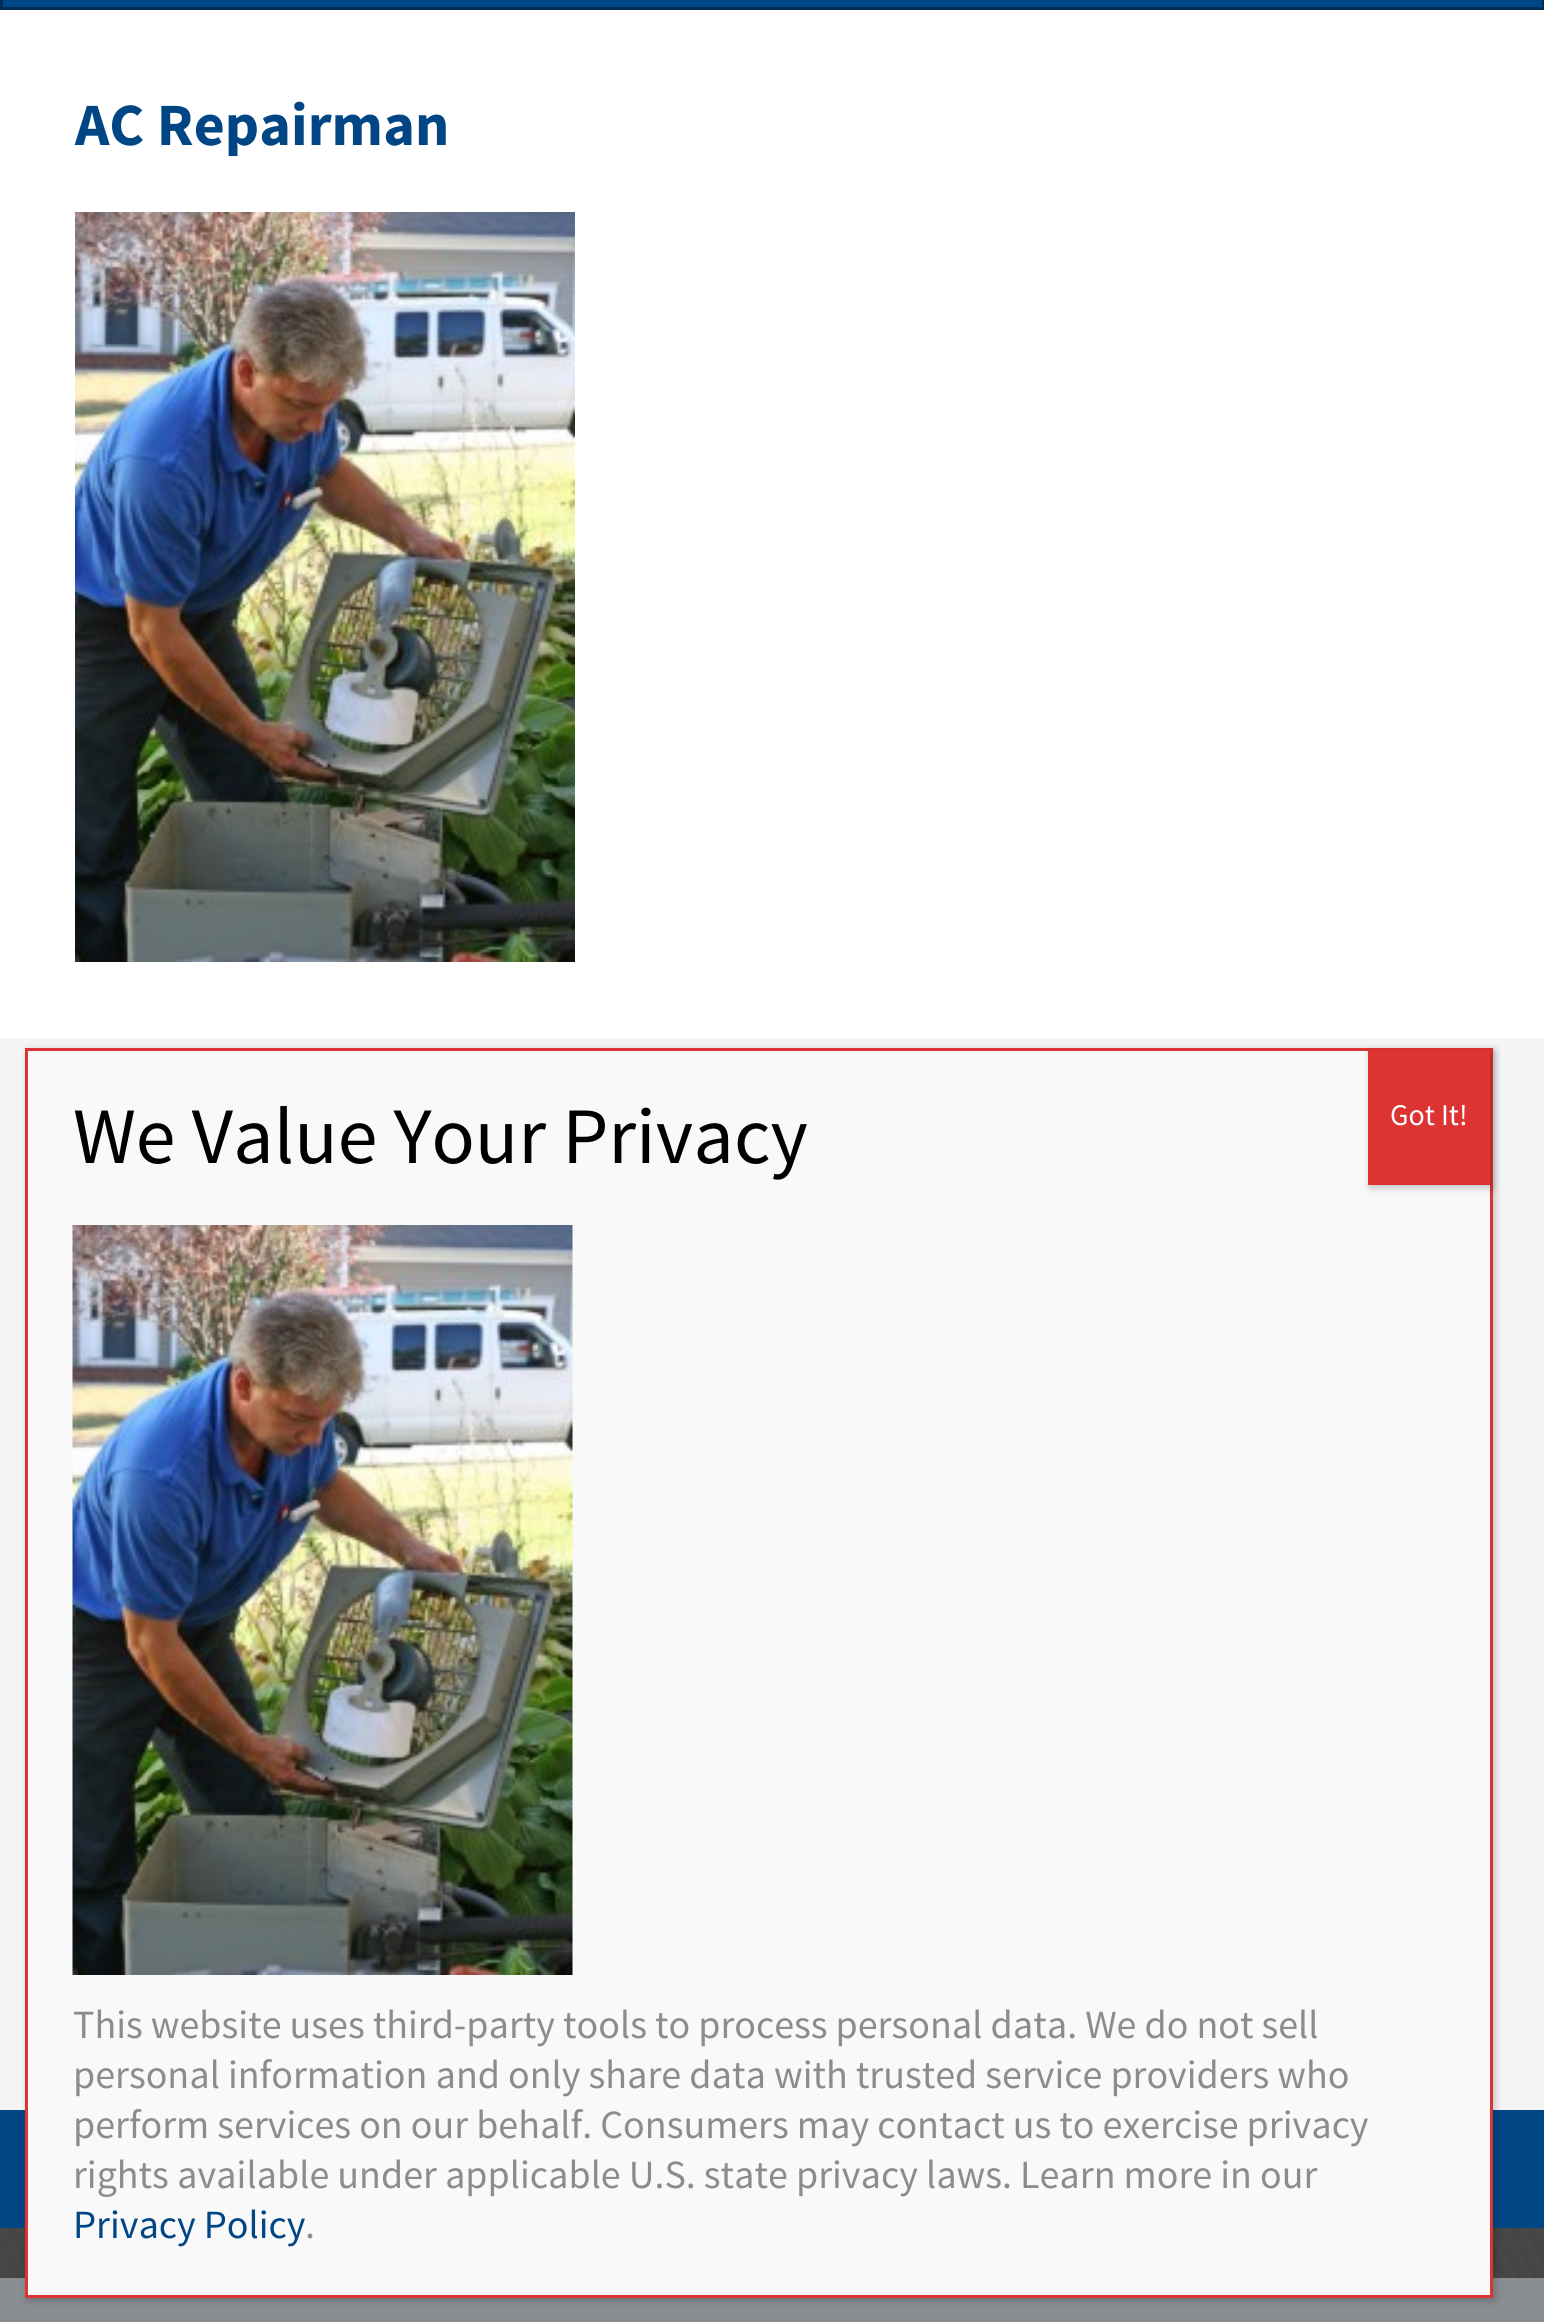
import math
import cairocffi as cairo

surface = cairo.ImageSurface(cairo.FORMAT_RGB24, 1544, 2322)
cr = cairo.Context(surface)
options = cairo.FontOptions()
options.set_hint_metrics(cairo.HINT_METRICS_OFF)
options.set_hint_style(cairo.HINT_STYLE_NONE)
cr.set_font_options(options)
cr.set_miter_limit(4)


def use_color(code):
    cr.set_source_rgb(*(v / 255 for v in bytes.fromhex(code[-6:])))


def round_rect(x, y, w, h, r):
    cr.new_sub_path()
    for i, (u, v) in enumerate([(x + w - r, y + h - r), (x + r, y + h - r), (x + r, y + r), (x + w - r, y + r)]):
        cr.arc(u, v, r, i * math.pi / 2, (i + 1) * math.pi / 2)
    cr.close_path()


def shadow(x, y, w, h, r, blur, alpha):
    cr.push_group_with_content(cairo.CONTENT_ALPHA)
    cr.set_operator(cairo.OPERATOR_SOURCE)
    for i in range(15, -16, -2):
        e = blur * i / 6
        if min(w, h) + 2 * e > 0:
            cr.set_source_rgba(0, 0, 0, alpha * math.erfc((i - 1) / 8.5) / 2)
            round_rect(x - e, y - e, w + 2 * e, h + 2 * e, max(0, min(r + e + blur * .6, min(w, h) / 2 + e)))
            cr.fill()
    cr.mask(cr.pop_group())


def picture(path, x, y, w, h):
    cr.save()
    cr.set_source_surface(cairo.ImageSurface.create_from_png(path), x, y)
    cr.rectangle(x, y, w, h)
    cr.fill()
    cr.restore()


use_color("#ffffff")
cr.paint()
picture("img1.png", 0, 2228, 1544, 50)
use_color("#004684")
cr.rectangle(1.5, -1.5, 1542, 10)
cr.fill_preserve()
use_color("#002d55")
cr.set_line_width(3)
cr.stroke()
cr.select_font_face("Source Sans Pro", cairo.FONT_SLANT_NORMAL, cairo.FONT_WEIGHT_BOLD)
cr.set_font_size(60)
use_color("#004684")
cr.move_to(75, 145)
cr.show_text("AC Repairman")
picture("img2.png", 75, 212, 500, 750)
use_color("#f5f5f5")
cr.rectangle(0, 1038, 1544, 1072)
cr.fill()
use_color("#004684")
cr.rectangle(0, 2110, 1544, 118)
cr.fill()
use_color("#888d91")
cr.rectangle(0, 2278, 1544, 44)
cr.fill()
use_color("#020202")
shadow(28, 1050, 1467, 1250, 0, 4, 0.23)
use_color("#f9f9f9")
cr.rectangle(26.5, 1049.5, 1465, 1247)
cr.fill_preserve()
use_color("#dd3333")
cr.stroke()
cr.select_font_face("Source Sans Pro")
cr.set_font_size(80)
use_color("#000000")
cr.move_to(73, 1163)
cr.show_text("We Value Your Privacy")
use_color("#020202")
shadow(1370, 1053, 123, 135, 0, 4, 0.23)
use_color("#dd3333")
cr.rectangle(1368, 1050, 122, 135)
cr.fill()
cr.set_font_size(30)
use_color("#ffffff")
cr.move_to(1390, 1125)
cr.show_text("Got It!")
picture("img3.png", 72, 1225, 501, 750)
cr.set_font_size(40)
use_color("#8c8c8c")
cr.move_to(73, 2038)
cr.show_text("This website uses third-party tools to process personal data. We do not sell")
cr.move_to(73, 2088)
cr.show_text("personal information and only share data with trusted service providers who")
cr.move_to(73, 2138)
cr.show_text("perform services on our behalf. Consumers may contact us to exercise privacy")
cr.move_to(73, 2188)
cr.show_text("rights available under applicable U.S. state privacy laws. Learn more in our")
use_color("#004684")
cr.move_to(73, 2238)
cr.show_text("Privacy Policy")
use_color("#8c8c8c")
cr.move_to(305, 2238)
cr.show_text(".")
surface.write_to_png("result.png")
